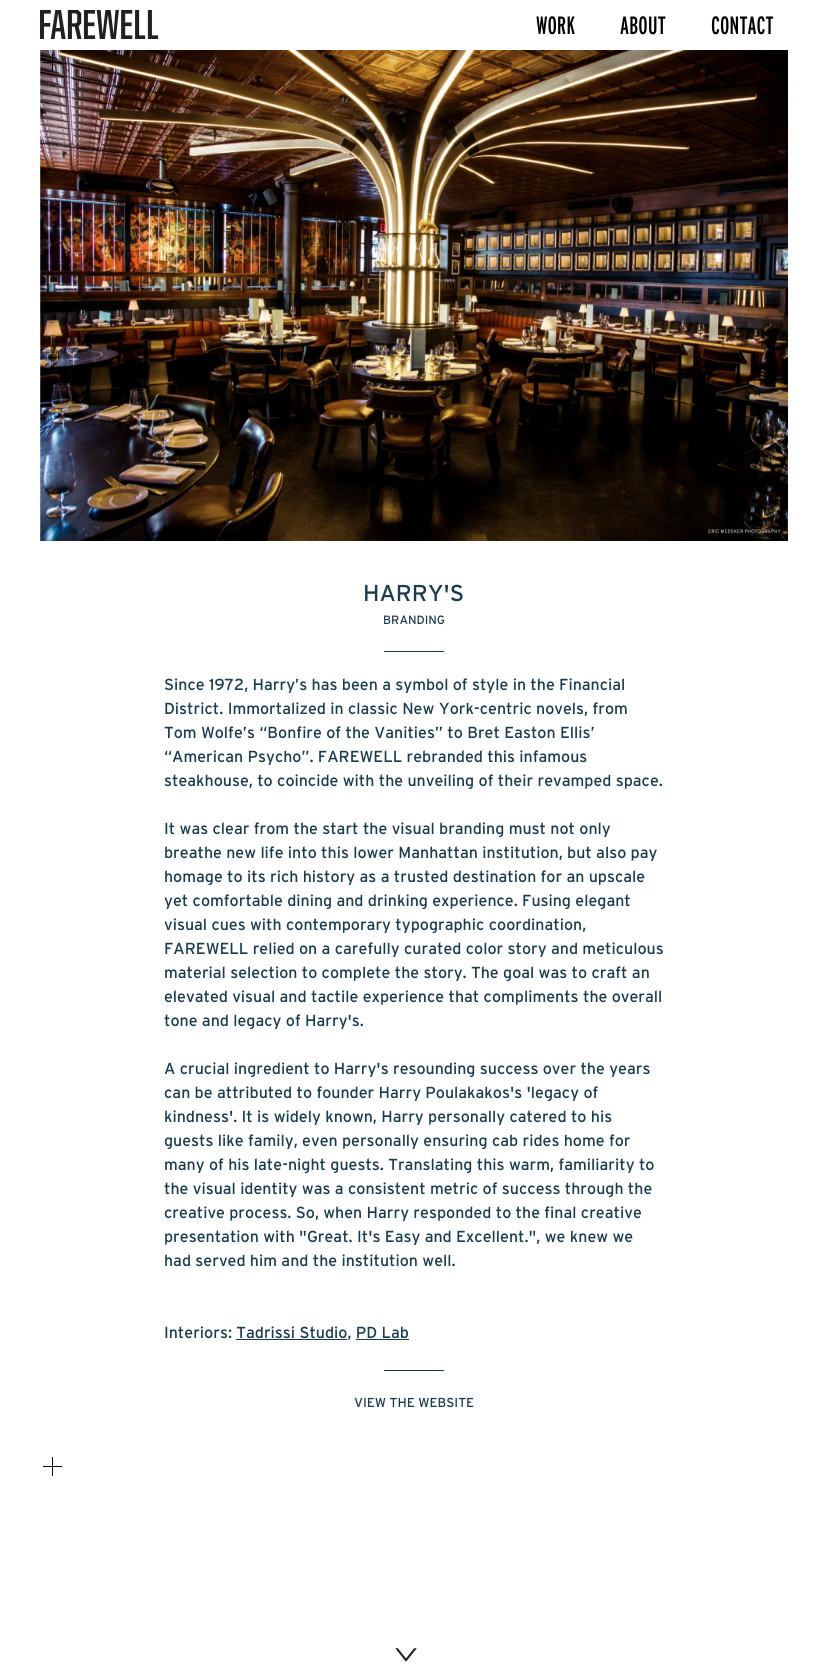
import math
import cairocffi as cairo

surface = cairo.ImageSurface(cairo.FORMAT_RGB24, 813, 1680)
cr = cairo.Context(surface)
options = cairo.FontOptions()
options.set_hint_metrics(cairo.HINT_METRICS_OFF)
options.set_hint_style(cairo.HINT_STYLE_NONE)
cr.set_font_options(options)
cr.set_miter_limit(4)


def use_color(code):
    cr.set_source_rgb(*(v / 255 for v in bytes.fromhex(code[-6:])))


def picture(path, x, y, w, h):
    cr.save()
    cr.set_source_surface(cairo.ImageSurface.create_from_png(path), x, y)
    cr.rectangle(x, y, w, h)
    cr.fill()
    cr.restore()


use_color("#ffffff")
cr.paint()
picture("img1.png", 40, 10, 118, 29)
cr.select_font_face("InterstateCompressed")
cr.set_font_size(25)
use_color("#000000")
cr.move_to(536, 34)
cr.show_text("WORK")
cr.move_to(620, 34)
cr.show_text("ABOUT")
cr.move_to(711, 34)
cr.show_text("CONTACT")
picture("img2.png", 40, 50, 748, 489)
picture("img3.png", 43, 53, 19, 19)
picture("img4.png", 40, 539, 748, 2)
cr.select_font_face("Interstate")
cr.set_font_size(23)
use_color("#193d50")
cr.move_to(363, 601)
cr.show_text("HARRY'S")
cr.set_font_size(12)
cr.move_to(383, 624)
cr.show_text("BRANDING")
cr.rectangle(384, 651, 60, 1)
cr.fill()
cr.set_font_size(16)
cr.move_to(164, 690)
cr.show_text("Since 1972, Harry’s has been a symbol of style in the Financial")
cr.move_to(164, 714)
cr.show_text("District. Immortalized in classic New York-centric novels, from")
cr.move_to(164, 738)
cr.show_text("Tom Wolfe’s “Bonfire of the Vanities” to Bret Easton Ellis’")
cr.move_to(164, 762)
cr.show_text("“American Psycho”. FAREWELL rebranded this infamous")
cr.move_to(164, 786)
cr.show_text("steakhouse, to coincide with the unveiling of their revamped space.")
cr.move_to(164, 834)
cr.show_text("It was clear from the start the visual branding must not only")
cr.move_to(164, 858)
cr.show_text("breathe new life into this lower Manhattan institution, but also pay")
cr.move_to(164, 882)
cr.show_text("homage to its rich history as a trusted destination for an upscale")
cr.move_to(164, 906)
cr.show_text("yet comfortable dining and drinking experience. Fusing elegant")
cr.move_to(164, 930)
cr.show_text("visual cues with contemporary typographic coordination,")
cr.move_to(164, 954)
cr.show_text("FAREWELL relied on a carefully curated color story and meticulous")
cr.move_to(164, 978)
cr.show_text("material selection to complete the story. The goal was to craft an")
cr.move_to(164, 1002)
cr.show_text("elevated visual and tactile experience that compliments the overall")
cr.move_to(164, 1026)
cr.show_text("tone and legacy of Harry's.")
cr.move_to(164, 1074)
cr.show_text("A crucial ingredient to Harry's resounding success over the years")
cr.move_to(164, 1098)
cr.show_text("can be attributed to founder Harry Poulakakos's 'legacy of")
cr.move_to(164, 1122)
cr.show_text("kindness'. It is widely known, Harry personally catered to his")
cr.move_to(164, 1146)
cr.show_text("guests like family, even personally ensuring cab rides home for")
cr.move_to(164, 1170)
cr.show_text("many of his late-night guests. Translating this warm, familiarity to")
cr.move_to(164, 1194)
cr.show_text("the visual identity was a consistent metric of success through the")
cr.move_to(164, 1218)
cr.show_text("creative process. So, when Harry responded to the final creative")
cr.move_to(164, 1242)
cr.show_text("presentation with \"Great. It's Easy and Excellent.\", we knew we")
cr.move_to(164, 1266)
cr.show_text("had served him and the institution well.")
cr.move_to(164, 1338)
cr.show_text("Interiors: Tadrissi Studio, PD Lab")
cr.rectangle(236, 1339, 111, 1)
cr.fill()
cr.rectangle(356, 1339, 53, 1)
cr.fill()
cr.rectangle(384, 1370, 60, 1)
cr.fill()
cr.set_font_size(13)
cr.move_to(354, 1407)
cr.show_text("VIEW THE WEBSITE")
picture("img5.png", 43, 1457, 19, 19)
picture("img6.png", 395, 1648, 22, 14)
surface.write_to_png("result.png")
